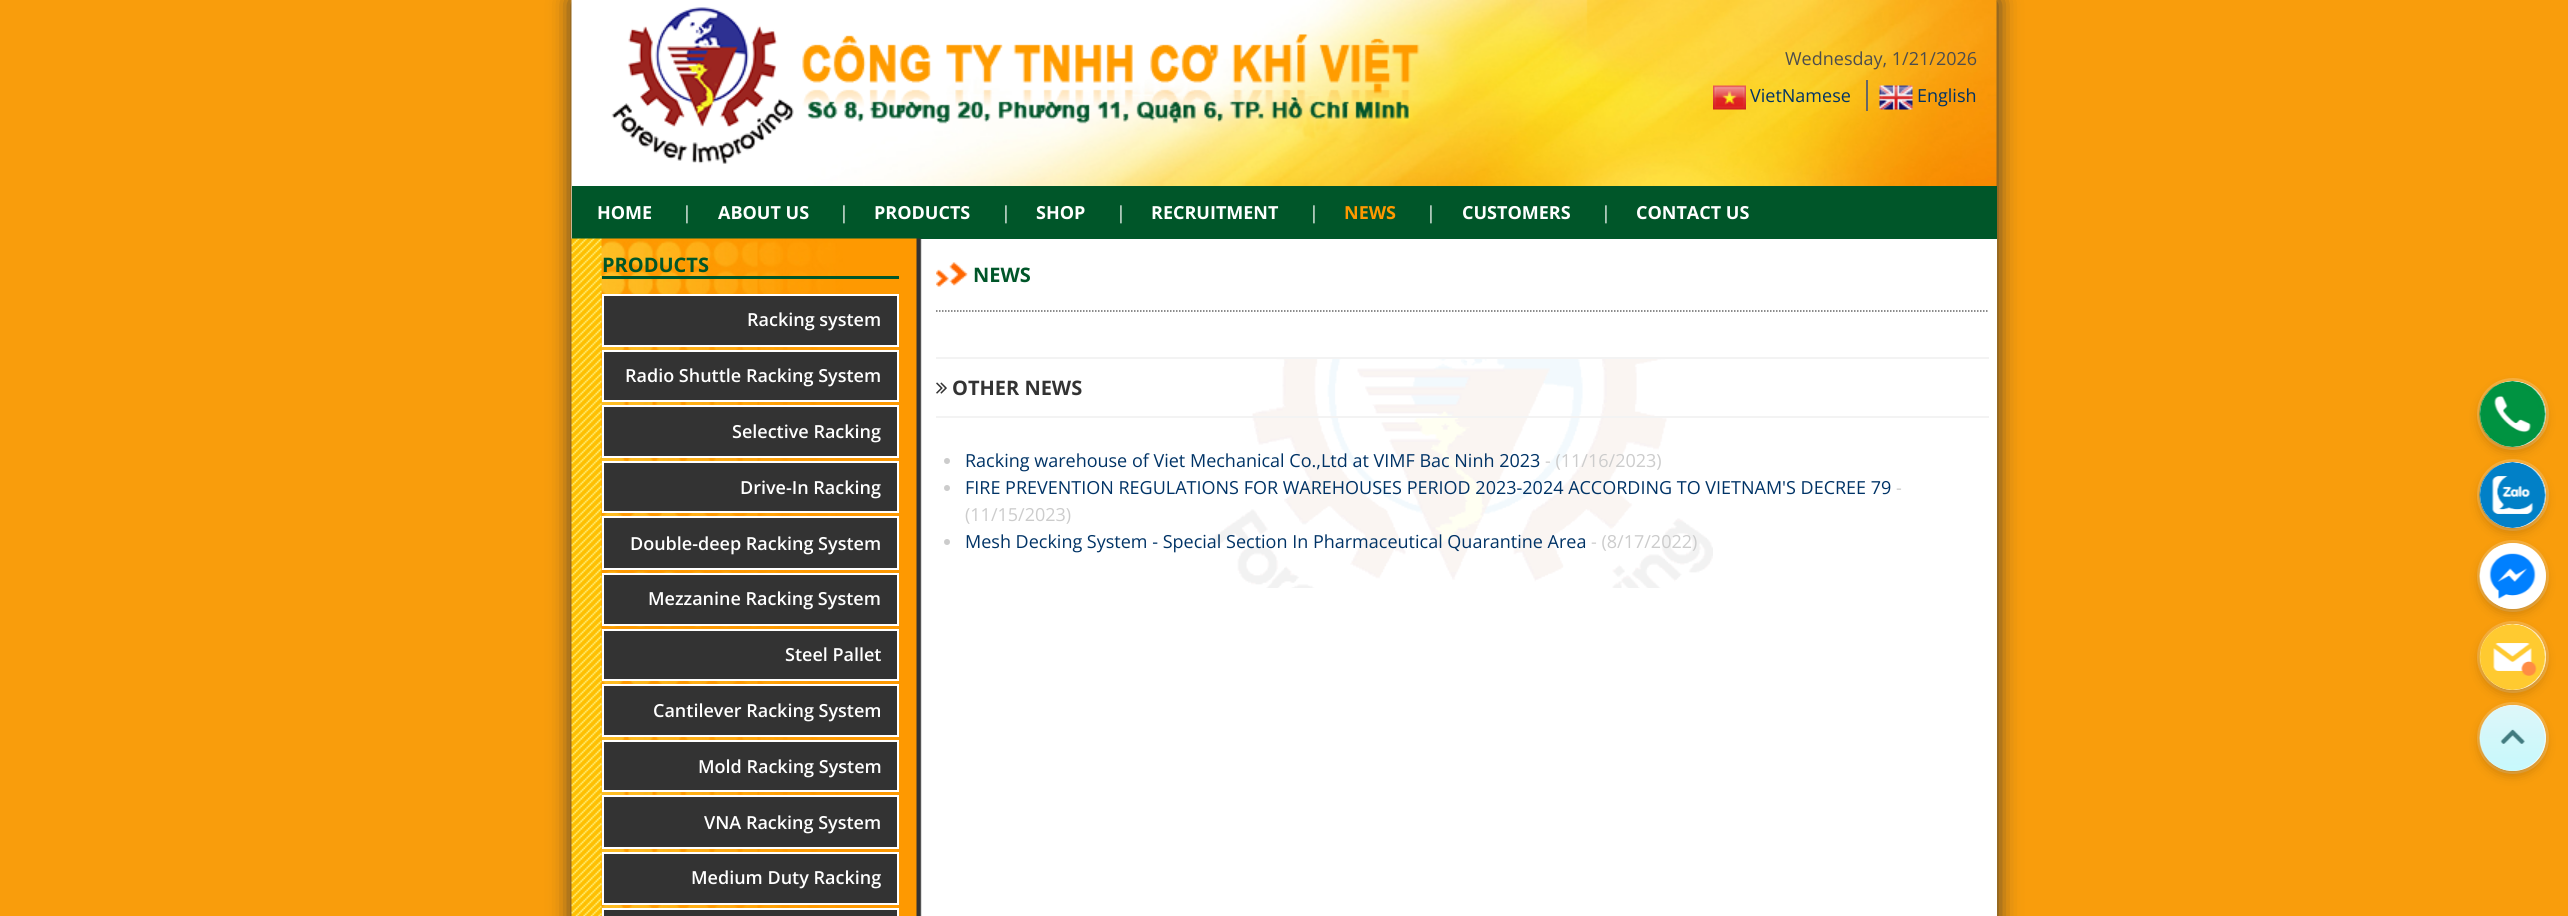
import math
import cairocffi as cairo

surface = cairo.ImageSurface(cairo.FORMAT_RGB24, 2568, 916)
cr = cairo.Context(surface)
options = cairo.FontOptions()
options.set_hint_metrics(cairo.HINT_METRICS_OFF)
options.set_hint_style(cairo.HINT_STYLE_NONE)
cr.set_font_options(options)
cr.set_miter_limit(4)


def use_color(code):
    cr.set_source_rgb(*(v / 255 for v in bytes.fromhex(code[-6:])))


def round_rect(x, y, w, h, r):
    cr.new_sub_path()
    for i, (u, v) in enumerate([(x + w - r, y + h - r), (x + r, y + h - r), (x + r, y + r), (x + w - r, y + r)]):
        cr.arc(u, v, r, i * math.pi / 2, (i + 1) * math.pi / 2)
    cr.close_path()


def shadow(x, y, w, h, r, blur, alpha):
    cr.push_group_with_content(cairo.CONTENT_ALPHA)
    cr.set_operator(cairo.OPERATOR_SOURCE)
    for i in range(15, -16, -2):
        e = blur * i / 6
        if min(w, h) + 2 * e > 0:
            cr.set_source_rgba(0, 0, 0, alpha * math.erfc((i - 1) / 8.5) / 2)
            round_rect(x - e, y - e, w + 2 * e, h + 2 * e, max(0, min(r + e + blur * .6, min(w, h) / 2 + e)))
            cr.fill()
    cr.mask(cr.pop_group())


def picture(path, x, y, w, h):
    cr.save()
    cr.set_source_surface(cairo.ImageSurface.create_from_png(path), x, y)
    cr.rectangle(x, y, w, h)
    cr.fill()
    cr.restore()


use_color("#f99d0c")
cr.paint()
use_color("#333333")
shadow(572, 0, 1425, 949, 0, 11, 1)
picture("img1.png", 571, 0, 1426, 239)
picture("img2.png", 611, 7, 809, 157)
cr.select_font_face("Open Sans")
cr.set_font_size(18)
use_color("#4d4d4d")
cr.move_to(1785, 65)
cr.show_text("Wednesday, 1/21/2026")
use_color("#666666")
cr.rectangle(1866, 80, 2, 31)
cr.fill()
picture("img3.png", 1713, 85, 33, 25)
use_color("#003366")
cr.move_to(1750, 102)
cr.show_text("VietNamese")
picture("img4.png", 1879, 85, 34, 25)
cr.move_to(1917, 102)
cr.show_text("English")
use_color("#005629")
cr.rectangle(572, 186, 1425, 53)
cr.fill()
cr.select_font_face("Open Sans", cairo.FONT_SLANT_NORMAL, cairo.FONT_WEIGHT_BOLD)
use_color("#ffffff")
cr.move_to(597, 219)
cr.show_text("HOME")
cr.select_font_face("Open Sans")
cr.move_to(682, 219)
cr.show_text("|")
cr.select_font_face("Open Sans", cairo.FONT_SLANT_NORMAL, cairo.FONT_WEIGHT_BOLD)
cr.move_to(718, 219)
cr.show_text("ABOUT US")
cr.select_font_face("Open Sans")
cr.move_to(839, 219)
cr.show_text("|")
cr.select_font_face("Open Sans", cairo.FONT_SLANT_NORMAL, cairo.FONT_WEIGHT_BOLD)
cr.move_to(874, 219)
cr.show_text("PRODUCTS")
cr.select_font_face("Open Sans")
cr.move_to(1001, 219)
cr.show_text("|")
cr.select_font_face("Open Sans", cairo.FONT_SLANT_NORMAL, cairo.FONT_WEIGHT_BOLD)
cr.move_to(1036, 219)
cr.show_text("SHOP")
cr.select_font_face("Open Sans")
cr.move_to(1116, 219)
cr.show_text("|")
cr.select_font_face("Open Sans", cairo.FONT_SLANT_NORMAL, cairo.FONT_WEIGHT_BOLD)
cr.move_to(1151, 219)
cr.show_text("RECRUITMENT")
cr.select_font_face("Open Sans")
cr.move_to(1309, 219)
cr.show_text("|")
cr.select_font_face("Open Sans", cairo.FONT_SLANT_NORMAL, cairo.FONT_WEIGHT_BOLD)
use_color("#ff9900")
cr.move_to(1344, 219)
cr.show_text("NEWS")
cr.select_font_face("Open Sans")
use_color("#ffffff")
cr.move_to(1426, 219)
cr.show_text("|")
cr.select_font_face("Open Sans", cairo.FONT_SLANT_NORMAL, cairo.FONT_WEIGHT_BOLD)
cr.move_to(1462, 219)
cr.show_text("CUSTOMERS")
cr.select_font_face("Open Sans")
cr.move_to(1601, 219)
cr.show_text("|")
cr.select_font_face("Open Sans", cairo.FONT_SLANT_NORMAL, cairo.FONT_WEIGHT_BOLD)
cr.move_to(1636, 219)
cr.show_text("CONTACT US")
cr.rectangle(920, 239, 1077, 677)
cr.fill()
picture("img5.png", 571, 238, 351, 678)
use_color("#005629")
cr.rectangle(602, 276, 297, 3)
cr.fill()
cr.set_font_size(20)
cr.move_to(602, 272)
cr.show_text("PRODUCTS")
use_color("#333333")
cr.rectangle(603, 295, 295, 51)
cr.fill_preserve()
use_color("#ffffff")
cr.stroke()
cr.select_font_face("Open Sans SemiBold")
cr.set_font_size(18)
cr.move_to(747, 326)
cr.show_text("Racking system")
use_color("#333333")
cr.rectangle(603, 351, 295, 50)
cr.fill_preserve()
use_color("#ffffff")
cr.stroke()
cr.move_to(625, 382)
cr.show_text("Radio Shuttle Racking System")
use_color("#333333")
cr.rectangle(603, 406, 295, 51)
cr.fill_preserve()
use_color("#ffffff")
cr.stroke()
cr.move_to(732, 438)
cr.show_text("Selective Racking")
use_color("#333333")
cr.rectangle(603, 462, 295, 50)
cr.fill_preserve()
use_color("#ffffff")
cr.stroke()
cr.move_to(740, 494)
cr.show_text("Drive-In Racking")
use_color("#333333")
cr.rectangle(603, 517, 295, 52)
cr.fill_preserve()
use_color("#ffffff")
cr.stroke()
cr.move_to(630, 550)
cr.show_text("Double-deep Racking System")
use_color("#333333")
cr.rectangle(603, 574, 295, 51)
cr.fill_preserve()
use_color("#ffffff")
cr.stroke()
cr.move_to(648, 605)
cr.show_text("Mezzanine Racking System")
use_color("#333333")
cr.rectangle(603, 630, 295, 50)
cr.fill_preserve()
use_color("#ffffff")
cr.stroke()
cr.move_to(785, 661)
cr.show_text("Steel Pallet")
use_color("#333333")
cr.rectangle(603, 685, 295, 51)
cr.fill_preserve()
use_color("#ffffff")
cr.stroke()
cr.move_to(653, 717)
cr.show_text("Cantilever Racking System")
use_color("#333333")
cr.rectangle(603, 741, 295, 50)
cr.fill_preserve()
use_color("#ffffff")
cr.stroke()
cr.move_to(698, 773)
cr.show_text("Mold Racking System")
use_color("#333333")
cr.rectangle(603, 796, 295, 52)
cr.fill_preserve()
use_color("#ffffff")
cr.stroke()
cr.move_to(704, 829)
cr.show_text("VNA Racking System")
use_color("#333333")
cr.rectangle(603, 853, 295, 51)
cr.fill_preserve()
use_color("#ffffff")
cr.stroke()
cr.move_to(691, 884)
cr.show_text("Medium Duty Racking")
use_color("#333333")
cr.rectangle(603, 909, 295, 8)
cr.fill_preserve()
use_color("#ffffff")
cr.stroke()
picture("img6.png", 936, 262, 32, 25)
cr.new_path()
cr.move_to(936, 311)
cr.line_to(1989, 311)
use_color("#666666")
cr.set_line_width(1.5)
cr.set_dash([1.5, 1.5])
cr.stroke()
cr.select_font_face("Open Sans", cairo.FONT_SLANT_NORMAL, cairo.FONT_WEIGHT_BOLD)
cr.set_font_size(20)
use_color("#005629")
cr.move_to(973, 282)
cr.show_text("NEWS")
picture("img7.png", 1212, 359, 501, 229)
use_color("#f3f3f3")
cr.rectangle(936, 357, 1053, 2)
cr.fill()
cr.rectangle(936, 416, 1053, 2)
cr.fill()
picture("img8.png", 936, 382, 11, 12)
use_color("#333333")
cr.move_to(952, 395)
cr.show_text("OTHER NEWS")
use_color("#cccccc")
cr.new_path()
cr.arc(947, 461, 3, 0, 2 * math.pi)
cr.fill()
cr.select_font_face("Open Sans")
cr.set_font_size(18)
use_color("#003366")
cr.move_to(965, 467)
cr.show_text("Racking warehouse of Viet Mechanical Co.,Ltd at VIMF Bac Ninh 2023")
use_color("#cccccc")
cr.move_to(1545, 467)
cr.show_text("- (11/16/2023)")
cr.new_path()
cr.arc(947, 488, 3, 0, 2 * math.pi)
cr.fill()
use_color("#003366")
cr.move_to(965, 494)
cr.show_text("FIRE PREVENTION REGULATIONS FOR WAREHOUSES PERIOD 2023-2024 ACCORDING TO VIETNAM'S DECREE 79")
use_color("#cccccc")
cr.move_to(1896, 494)
cr.show_text("-")
cr.move_to(965, 521)
cr.show_text("(11/15/2023)")
cr.new_path()
cr.arc(947, 542, 3, 0, 2 * math.pi)
cr.fill()
use_color("#003366")
cr.move_to(965, 548)
cr.show_text("Mesh Decking System - Special Section In Pharmaceutical Quarantine Area")
use_color("#cccccc")
cr.move_to(1591, 548)
cr.show_text("- (8/17/2022)")
cr.new_path()
cr.arc(2513, 414, 34.5, 0, 2 * math.pi)
use_color("#fab13d")
cr.set_line_width(3)
cr.set_dash([])
cr.stroke()
use_color("#000000")
shadow(2484, 390, 57, 57, 28.5, 7, 0.35)
use_color("#ffffff")
cr.arc(2513, 414, 33, 0, 2 * math.pi)
cr.fill()
cr.set_source_rgba(1, 1, 1, 0.5)
cr.new_path()
cr.move_to(2512, 382)
cr.curve_to(2530, 382, 2545, 397, 2545, 414)
cr.curve_to(2545, 432, 2531, 447, 2513, 447)
cr.curve_to(2552, 447, 2558, 389, 2520, 382)
cr.curve_to(2511, 380, 2502, 382, 2495, 387)
cr.curve_to(2485, 393, 2480, 403, 2480, 414)
cr.curve_to(2480, 396, 2495, 382, 2512, 382)
cr.close_path()
cr.fill()
picture("img9.png", 2479, 381, 67, 66)
cr.arc(2513, 495, 34.5, 0, 2 * math.pi)
cr.set_source_rgba(1, 1, 1, 0.2)
cr.stroke()
use_color("#000000")
shadow(2484, 471, 57, 57, 28.5, 7, 0.35)
use_color("#ffffff")
cr.arc(2513, 495, 33, 0, 2 * math.pi)
cr.fill()
cr.set_source_rgba(1, 1, 1, 0.5)
cr.new_path()
cr.move_to(2512, 463)
cr.curve_to(2530, 463, 2545, 478, 2545, 496)
cr.curve_to(2545, 513, 2531, 528, 2513, 528)
cr.curve_to(2552, 528, 2558, 470, 2520, 463)
cr.curve_to(2511, 461, 2502, 463, 2495, 468)
cr.curve_to(2485, 474, 2480, 484, 2480, 495)
cr.curve_to(2480, 477, 2495, 463, 2512, 463)
cr.close_path()
cr.fill()
picture("img10.png", 2479, 462, 67, 66)
cr.arc(2513, 576, 34.5, 0, 2 * math.pi)
cr.set_source_rgba(1, 1, 1, 0.2)
cr.stroke()
use_color("#000000")
shadow(2484, 552, 57, 57, 28.5, 7, 0.35)
use_color("#ffffff")
cr.arc(2513, 576, 33, 0, 2 * math.pi)
cr.fill()
cr.set_source_rgba(1, 1, 1, 0.5)
cr.new_path()
cr.move_to(2512, 544)
cr.curve_to(2530, 544, 2545, 559, 2545, 576)
cr.curve_to(2545, 594, 2531, 609, 2513, 609)
cr.curve_to(2552, 609, 2558, 551, 2520, 544)
cr.curve_to(2511, 542, 2502, 544, 2495, 549)
cr.curve_to(2485, 555, 2480, 565, 2480, 576)
cr.curve_to(2480, 558, 2495, 544, 2512, 544)
cr.close_path()
cr.fill()
picture("img11.png", 2479, 543, 67, 66)
cr.arc(2513, 657, 34.5, 0, 2 * math.pi)
cr.set_source_rgba(1, 1, 1, 0.2)
cr.stroke()
use_color("#000000")
shadow(2484, 633, 57, 57, 28.5, 7, 0.35)
use_color("#ffffff")
cr.arc(2513, 657, 33, 0, 2 * math.pi)
cr.fill()
cr.set_source_rgba(1, 1, 1, 0.5)
cr.new_path()
cr.move_to(2512, 625)
cr.curve_to(2530, 625, 2545, 640, 2545, 658)
cr.curve_to(2545, 675, 2531, 690, 2513, 690)
cr.curve_to(2552, 690, 2558, 632, 2520, 625)
cr.curve_to(2511, 623, 2502, 625, 2495, 630)
cr.curve_to(2485, 636, 2480, 646, 2480, 657)
cr.curve_to(2480, 639, 2495, 625, 2512, 625)
cr.close_path()
cr.fill()
picture("img12.png", 2479, 624, 67, 66)
cr.arc(2513, 738, 34.5, 0, 2 * math.pi)
cr.set_source_rgba(1, 1, 1, 0.2)
cr.stroke()
use_color("#000000")
shadow(2484, 714, 57, 57, 28.5, 7, 0.35)
use_color("#ffffff")
cr.arc(2513, 738, 33, 0, 2 * math.pi)
cr.fill()
cr.set_source_rgba(1, 1, 1, 0.5)
cr.new_path()
cr.move_to(2512, 706)
cr.curve_to(2530, 706, 2545, 721, 2545, 738)
cr.curve_to(2545, 756, 2531, 771, 2513, 771)
cr.curve_to(2552, 771, 2558, 713, 2520, 706)
cr.curve_to(2511, 704, 2502, 706, 2495, 711)
cr.curve_to(2485, 717, 2480, 727, 2480, 738)
cr.curve_to(2480, 720, 2495, 706, 2512, 706)
cr.close_path()
cr.fill()
picture("img13.png", 2479, 705, 67, 66)
surface.write_to_png("result.png")
